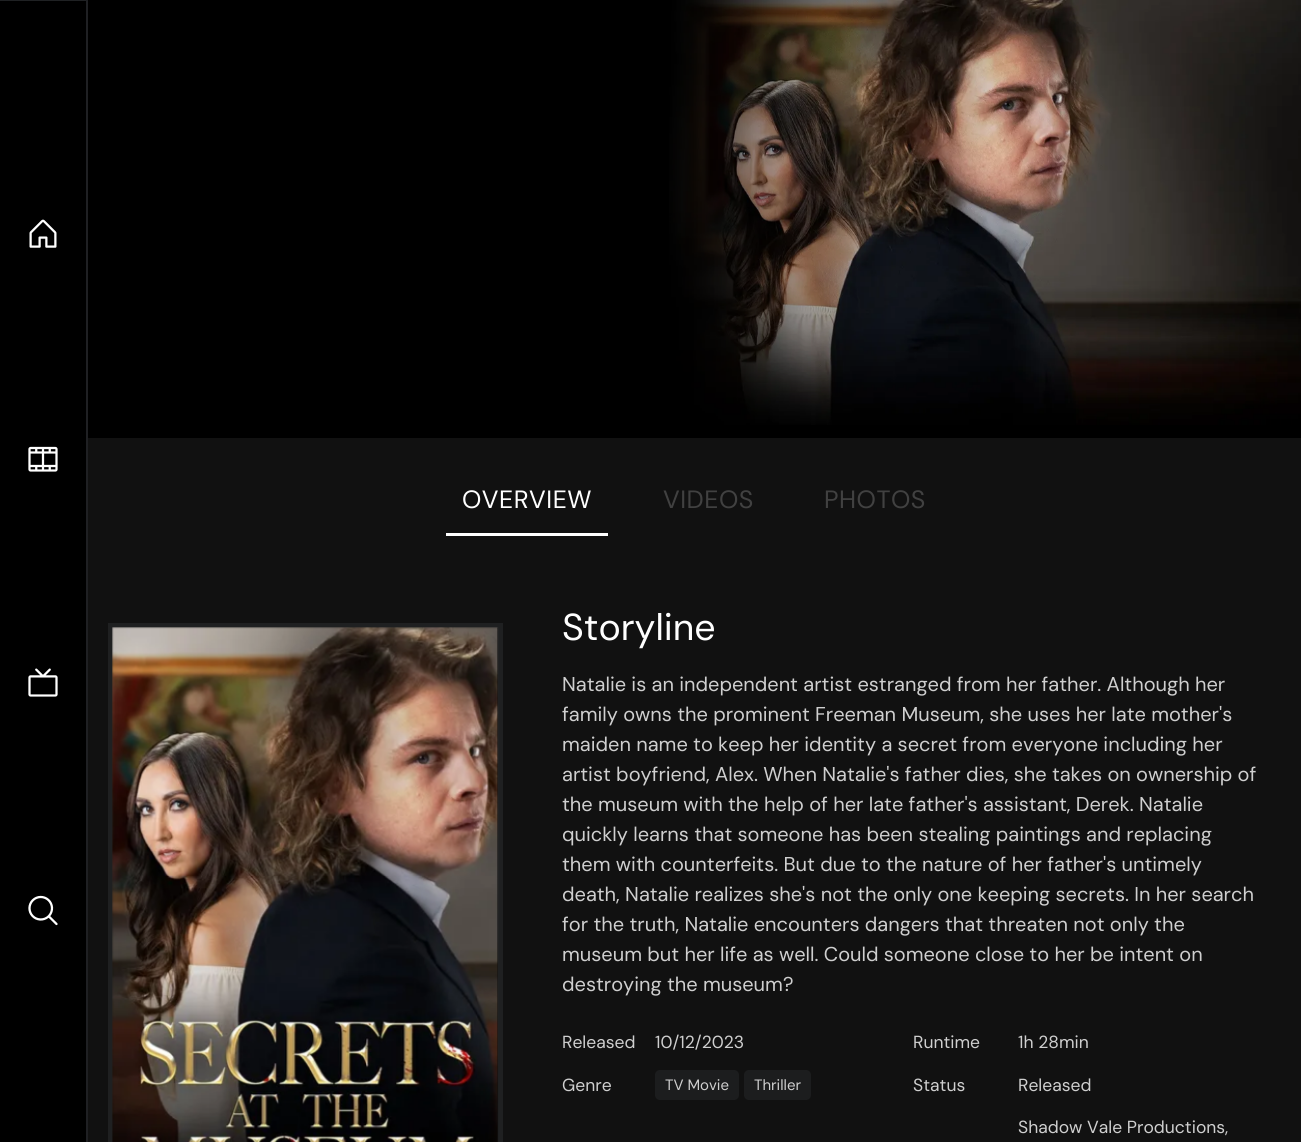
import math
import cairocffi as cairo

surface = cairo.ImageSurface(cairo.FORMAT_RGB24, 1301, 1142)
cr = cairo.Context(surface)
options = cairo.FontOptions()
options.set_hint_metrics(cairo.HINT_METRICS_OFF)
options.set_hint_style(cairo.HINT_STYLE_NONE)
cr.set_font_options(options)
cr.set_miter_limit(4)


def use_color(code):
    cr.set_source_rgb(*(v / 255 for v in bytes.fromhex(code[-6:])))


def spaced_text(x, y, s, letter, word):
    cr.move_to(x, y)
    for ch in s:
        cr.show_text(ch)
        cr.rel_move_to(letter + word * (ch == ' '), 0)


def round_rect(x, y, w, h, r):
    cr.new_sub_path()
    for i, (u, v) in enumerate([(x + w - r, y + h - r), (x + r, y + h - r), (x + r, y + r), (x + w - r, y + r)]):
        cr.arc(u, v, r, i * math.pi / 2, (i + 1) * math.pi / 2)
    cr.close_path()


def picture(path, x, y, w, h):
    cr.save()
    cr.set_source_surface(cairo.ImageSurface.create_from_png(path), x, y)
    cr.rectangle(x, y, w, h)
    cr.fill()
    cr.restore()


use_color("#111111")
cr.paint()
use_color("#000000")
cr.rectangle(0, 0, 88, 1142)
cr.fill()
use_color("#1f2123")
cr.new_path()
cr.move_to(0, 0)
cr.line_to(88, 0)
cr.line_to(86, 1)
cr.line_to(0, 1)
cr.close_path()
cr.fill()
cr.set_source_rgba(0.612, 0.639, 0.686, 0.2)
cr.new_path()
cr.move_to(88, 0)
cr.line_to(88, 1142)
cr.line_to(86, 1142)
cr.line_to(86, 1)
cr.close_path()
cr.fill()
picture("img1.png", 29, 219, 28, 29)
picture("img2.png", 28, 446, 30, 26)
picture("img3.png", 28, 668, 30, 29)
picture("img4.png", 28, 895, 30, 31)
use_color("#000000")
cr.rectangle(494, 0, 807, 438)
cr.fill()
picture("img5.png", 669, 0, 632, 425)
gradient = cairo.LinearGradient(88, 219, 896, 219)
gradient.add_color_stop_rgba(0, 0, 0, 0, 1)
gradient.add_color_stop_rgba(0.5, 0, 0, 0, 1)
gradient.add_color_stop_rgba(1, 0, 0, 0, 0)
cr.set_source(gradient)
cr.rectangle(88, 0, 799, 438)
cr.fill()
use_color("#ffffff")
cr.rectangle(446, 533, 162, 3)
cr.fill()
cr.select_font_face("DM Sans")
cr.set_font_size(25)
spaced_text(462, 508, "OVERVIEW", 0.5, 0)
use_color("#414141")
spaced_text(663, 508, "VIDEOS", 0.5, 0)
spaced_text(824, 508, "PHOTOS", 0.5, 0)
cr.rectangle(110.5, 625.5, 390, 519)
use_color("#1f2021")
cr.set_line_width(5)
cr.stroke()
picture("img6.png", 112, 627, 387, 515)
cr.set_font_size(37.5)
use_color("#ffffff")
cr.move_to(562, 640)
cr.show_text("Storyline")
cr.set_font_size(20)
use_color("#cfcfcf")
cr.move_to(562, 691)
cr.show_text("Natalie is an independent artist estranged from her father. Although her")
cr.move_to(562, 721)
cr.show_text("family owns the prominent Freeman Museum, she uses her late mother's")
cr.move_to(562, 751)
cr.show_text("maiden name to keep her identity a secret from everyone including her")
cr.move_to(562, 781)
cr.show_text("artist boyfriend, Alex. When Natalie's father dies, she takes on ownership of")
cr.move_to(562, 811)
cr.show_text("the museum with the help of her late father's assistant, Derek. Natalie")
cr.move_to(562, 841)
cr.show_text("quickly learns that someone has been stealing paintings and replacing")
cr.move_to(562, 871)
cr.show_text("them with counterfeits. But due to the nature of her father's untimely")
cr.move_to(562, 901)
cr.show_text("death, Natalie realizes she's not the only one keeping secrets. In her search")
cr.move_to(562, 931)
cr.show_text("for the truth, Natalie encounters dangers that threaten not only the")
cr.move_to(562, 961)
cr.show_text("museum but her life as well. Could someone close to her be intent on")
cr.move_to(562, 991)
cr.show_text("destroying the museum?")
cr.set_font_size(17.5)
cr.move_to(562, 1048)
cr.show_text("Released")
cr.move_to(655, 1048)
cr.show_text("10/12/2023")
cr.move_to(913, 1048)
cr.show_text("Runtime")
cr.move_to(1018, 1048)
cr.show_text("1h 28min")
cr.move_to(562, 1091)
cr.show_text("Genre")
use_color("#1c1d1e")
round_rect(655, 1070, 84, 30, 5)
cr.fill()
cr.set_font_size(15)
use_color("#cfcfcf")
cr.move_to(665, 1090)
cr.show_text("TV Movie")
use_color("#1c1d1e")
round_rect(744, 1070, 67, 30, 5)
cr.fill()
use_color("#cfcfcf")
cr.move_to(754, 1090)
cr.show_text("Thriller")
cr.set_font_size(17.5)
cr.move_to(913, 1091)
cr.show_text("Status")
cr.move_to(1018, 1091)
cr.show_text("Released")
cr.move_to(1018, 1133)
cr.show_text("Shadow Vale Productions,")
surface.write_to_png("result.png")
